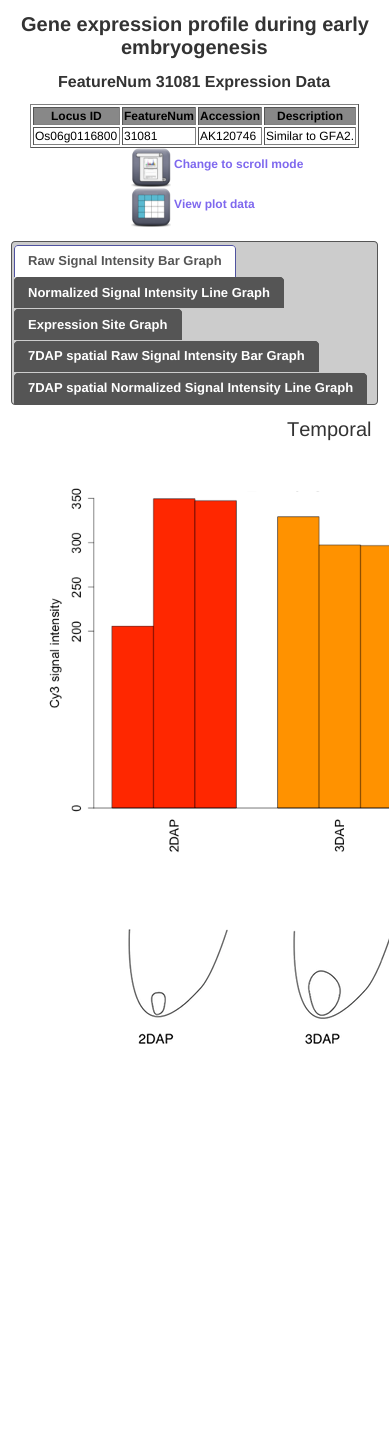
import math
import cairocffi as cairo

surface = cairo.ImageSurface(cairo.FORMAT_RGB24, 389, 1454)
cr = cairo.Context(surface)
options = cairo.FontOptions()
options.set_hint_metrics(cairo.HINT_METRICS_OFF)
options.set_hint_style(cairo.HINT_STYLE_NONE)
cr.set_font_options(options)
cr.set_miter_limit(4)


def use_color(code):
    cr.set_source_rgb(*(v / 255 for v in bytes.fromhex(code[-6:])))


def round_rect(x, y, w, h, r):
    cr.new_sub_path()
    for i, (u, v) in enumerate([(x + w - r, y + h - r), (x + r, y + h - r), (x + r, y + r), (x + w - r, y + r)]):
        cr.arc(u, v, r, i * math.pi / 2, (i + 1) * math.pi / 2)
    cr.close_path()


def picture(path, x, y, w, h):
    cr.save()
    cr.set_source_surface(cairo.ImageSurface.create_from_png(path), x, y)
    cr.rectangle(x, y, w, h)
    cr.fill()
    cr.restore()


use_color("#ffffff")
cr.paint()
cr.select_font_face("Liberation Sans", cairo.FONT_SLANT_NORMAL, cairo.FONT_WEIGHT_BOLD)
cr.set_font_size(20)
use_color("#333333")
cr.move_to(21, 31)
cr.show_text("Gene expression profile during early")
cr.move_to(121, 54)
cr.show_text("embryogenesis")
cr.set_font_size(16)
cr.move_to(58, 87)
cr.show_text("FeatureNum 31081 Expression Data")
use_color("#808080")
cr.rectangle(30, 104, 329, 1)
cr.fill()
use_color("#555555")
cr.rectangle(358, 104, 1, 44)
cr.fill()
cr.rectangle(30, 147, 329, 1)
cr.fill()
use_color("#808080")
cr.rectangle(30, 104, 1, 44)
cr.fill()
use_color("#888888")
cr.rectangle(34, 108, 85, 16)
cr.fill()
use_color("#555555")
cr.rectangle(33, 107, 87, 1)
cr.fill()
use_color("#808080")
cr.rectangle(119, 107, 1, 18)
cr.fill()
cr.rectangle(33, 124, 87, 1)
cr.fill()
use_color("#555555")
cr.rectangle(33, 107, 1, 18)
cr.fill()
cr.set_font_size(12)
use_color("#000000")
cr.move_to(51, 120)
cr.show_text("Locus ID")
use_color("#888888")
cr.rectangle(123, 108, 72, 16)
cr.fill()
use_color("#555555")
cr.rectangle(122, 107, 74, 1)
cr.fill()
use_color("#808080")
cr.rectangle(195, 107, 1, 18)
cr.fill()
cr.rectangle(122, 124, 74, 1)
cr.fill()
use_color("#555555")
cr.rectangle(122, 107, 1, 18)
cr.fill()
use_color("#000000")
cr.move_to(124, 120)
cr.show_text("FeatureNum")
use_color("#888888")
cr.rectangle(199, 108, 62, 16)
cr.fill()
use_color("#555555")
cr.rectangle(198, 107, 64, 1)
cr.fill()
use_color("#808080")
cr.rectangle(261, 107, 1, 18)
cr.fill()
cr.rectangle(198, 124, 64, 1)
cr.fill()
use_color("#555555")
cr.rectangle(198, 107, 1, 18)
cr.fill()
use_color("#000000")
cr.move_to(200, 120)
cr.show_text("Accession")
use_color("#888888")
cr.rectangle(265, 108, 90, 16)
cr.fill()
use_color("#555555")
cr.rectangle(264, 107, 92, 1)
cr.fill()
use_color("#808080")
cr.rectangle(355, 107, 1, 18)
cr.fill()
cr.rectangle(264, 124, 92, 1)
cr.fill()
use_color("#555555")
cr.rectangle(264, 107, 1, 18)
cr.fill()
use_color("#000000")
cr.move_to(277, 120)
cr.show_text("Description")
use_color("#555555")
cr.rectangle(33, 127, 87, 1)
cr.fill()
use_color("#808080")
cr.rectangle(119, 127, 1, 18)
cr.fill()
cr.rectangle(33, 144, 87, 1)
cr.fill()
use_color("#555555")
cr.rectangle(33, 127, 1, 18)
cr.fill()
cr.select_font_face("Liberation Sans")
use_color("#000000")
cr.move_to(35, 140)
cr.show_text("Os06g0116800")
use_color("#555555")
cr.rectangle(122, 127, 74, 1)
cr.fill()
use_color("#808080")
cr.rectangle(195, 127, 1, 18)
cr.fill()
cr.rectangle(122, 144, 74, 1)
cr.fill()
use_color("#555555")
cr.rectangle(122, 127, 1, 18)
cr.fill()
use_color("#000000")
cr.move_to(124, 140)
cr.show_text("31081")
use_color("#555555")
cr.rectangle(198, 127, 64, 1)
cr.fill()
use_color("#808080")
cr.rectangle(261, 127, 1, 18)
cr.fill()
cr.rectangle(198, 144, 64, 1)
cr.fill()
use_color("#555555")
cr.rectangle(198, 127, 1, 18)
cr.fill()
use_color("#000000")
cr.move_to(200, 140)
cr.show_text("AK120746")
use_color("#555555")
cr.rectangle(264, 127, 92, 1)
cr.fill()
use_color("#808080")
cr.rectangle(355, 127, 1, 18)
cr.fill()
cr.rectangle(264, 144, 92, 1)
cr.fill()
use_color("#555555")
cr.rectangle(264, 127, 1, 18)
cr.fill()
use_color("#000000")
cr.move_to(266, 140)
cr.show_text("Similar to GFA2.")
picture("img1.png", 131, 148, 40, 40)
cr.select_font_face("Liberation Sans", cairo.FONT_SLANT_NORMAL, cairo.FONT_WEIGHT_BOLD)
use_color("#7e68ee")
cr.move_to(174, 168)
cr.show_text("Change to scroll mode")
picture("img2.png", 131, 188, 40, 39)
cr.move_to(174, 208)
cr.show_text("View plot data")
use_color("#cccccc")
round_rect(11.5, 241.5, 366, 163, 3.5)
cr.fill_preserve()
use_color("#555555")
cr.set_line_width(1)
cr.stroke()
use_color("#ffffff")
cr.new_path()
cr.move_to(18, 245)
cr.line_to(232, 245)
cr.curve_to(234, 245, 236, 247, 236, 249)
cr.line_to(236, 277)
cr.line_to(14, 277)
cr.line_to(14, 249)
cr.curve_to(14, 247, 16, 245, 18, 245)
cr.close_path()
cr.fill()
use_color("#4f529f")
cr.set_fill_rule(cairo.FILL_RULE_EVEN_ODD)
cr.new_path()
cr.move_to(18, 245)
cr.line_to(232, 245)
cr.curve_to(234, 245, 236, 247, 236, 249)
cr.line_to(236, 277)
cr.line_to(14, 277)
cr.line_to(14, 249)
cr.curve_to(14, 247, 16, 245, 18, 245)
cr.close_path()
cr.move_to(18, 246)
cr.line_to(232, 246)
cr.curve_to(234, 246, 235, 247, 235, 249)
cr.line_to(235, 277)
cr.line_to(15, 277)
cr.line_to(15, 249)
cr.curve_to(15, 247, 16, 246, 18, 246)
cr.close_path()
cr.fill()
cr.set_font_size(13)
use_color("#555555")
cr.move_to(28, 265)
cr.show_text("Raw Signal Intensity Bar Graph")
cr.new_path()
cr.move_to(18, 277)
cr.line_to(280, 277)
cr.curve_to(282, 277, 284, 279, 284, 281)
cr.line_to(284, 308)
cr.line_to(14, 308)
cr.line_to(14, 281)
cr.curve_to(14, 279, 16, 277, 18, 277)
cr.close_path()
cr.fill()
cr.new_path()
cr.move_to(18, 277)
cr.line_to(280, 277)
cr.curve_to(282, 277, 284, 279, 284, 281)
cr.line_to(284, 308)
cr.line_to(14, 308)
cr.line_to(14, 281)
cr.curve_to(14, 279, 16, 277, 18, 277)
cr.close_path()
cr.move_to(18, 278)
cr.line_to(280, 278)
cr.curve_to(282, 278, 283, 279, 283, 281)
cr.line_to(283, 308)
cr.line_to(15, 308)
cr.line_to(15, 281)
cr.curve_to(15, 279, 16, 278, 18, 278)
cr.close_path()
cr.fill()
use_color("#ffffff")
cr.move_to(28, 297)
cr.show_text("Normalized Signal Intensity Line Graph")
use_color("#555555")
cr.new_path()
cr.move_to(18, 309)
cr.line_to(178, 309)
cr.curve_to(180, 309, 182, 311, 182, 313)
cr.line_to(182, 340)
cr.line_to(14, 340)
cr.line_to(14, 313)
cr.curve_to(14, 311, 16, 309, 18, 309)
cr.close_path()
cr.fill()
cr.new_path()
cr.move_to(18, 309)
cr.line_to(178, 309)
cr.curve_to(180, 309, 182, 311, 182, 313)
cr.line_to(182, 340)
cr.line_to(14, 340)
cr.line_to(14, 313)
cr.curve_to(14, 311, 16, 309, 18, 309)
cr.close_path()
cr.move_to(18, 310)
cr.line_to(178, 310)
cr.curve_to(180, 310, 181, 311, 181, 313)
cr.line_to(181, 340)
cr.line_to(15, 340)
cr.line_to(15, 313)
cr.curve_to(15, 311, 16, 310, 18, 310)
cr.close_path()
cr.fill()
use_color("#ffffff")
cr.move_to(28, 329)
cr.show_text("Expression Site Graph")
use_color("#555555")
cr.new_path()
cr.move_to(18, 341)
cr.line_to(315, 341)
cr.curve_to(317, 341, 319, 343, 319, 345)
cr.line_to(319, 372)
cr.line_to(14, 372)
cr.line_to(14, 345)
cr.curve_to(14, 343, 16, 341, 18, 341)
cr.close_path()
cr.fill()
cr.new_path()
cr.move_to(18, 341)
cr.line_to(315, 341)
cr.curve_to(317, 341, 319, 343, 319, 345)
cr.line_to(319, 372)
cr.line_to(14, 372)
cr.line_to(14, 345)
cr.curve_to(14, 343, 16, 341, 18, 341)
cr.close_path()
cr.move_to(18, 342)
cr.line_to(315, 342)
cr.curve_to(317, 342, 318, 343, 318, 345)
cr.line_to(318, 372)
cr.line_to(15, 372)
cr.line_to(15, 345)
cr.curve_to(15, 343, 16, 342, 18, 342)
cr.close_path()
cr.fill()
use_color("#ffffff")
cr.move_to(28, 360)
cr.show_text("7DAP spatial Raw Signal Intensity Bar Graph")
use_color("#555555")
cr.new_path()
cr.move_to(18, 373)
cr.line_to(363, 373)
cr.curve_to(365, 373, 367, 375, 367, 377)
cr.line_to(367, 404)
cr.line_to(14, 404)
cr.line_to(14, 377)
cr.curve_to(14, 375, 16, 373, 18, 373)
cr.close_path()
cr.fill()
cr.new_path()
cr.move_to(18, 373)
cr.line_to(363, 373)
cr.curve_to(365, 373, 367, 375, 367, 377)
cr.line_to(367, 404)
cr.line_to(14, 404)
cr.line_to(14, 377)
cr.curve_to(14, 375, 16, 373, 18, 373)
cr.close_path()
cr.move_to(18, 374)
cr.line_to(363, 374)
cr.curve_to(365, 374, 366, 375, 366, 377)
cr.line_to(366, 404)
cr.line_to(15, 404)
cr.line_to(15, 377)
cr.curve_to(15, 375, 16, 374, 18, 374)
cr.close_path()
cr.fill()
use_color("#ffffff")
cr.move_to(28, 392)
cr.show_text("7DAP spatial Normalized Signal Intensity Line Graph")
cr.select_font_face("Liberation Sans")
cr.set_font_size(20)
use_color("#333333")
cr.move_to(287, 436)
cr.show_text("Temporal")
picture("img3.png", 49, 476, 340, 377)
use_color("#ffffff")
cr.rectangle(143, 476, 246, 15)
cr.fill()
picture("img4.png", 128, 929, 261, 116)
surface.write_to_png("result.png")
